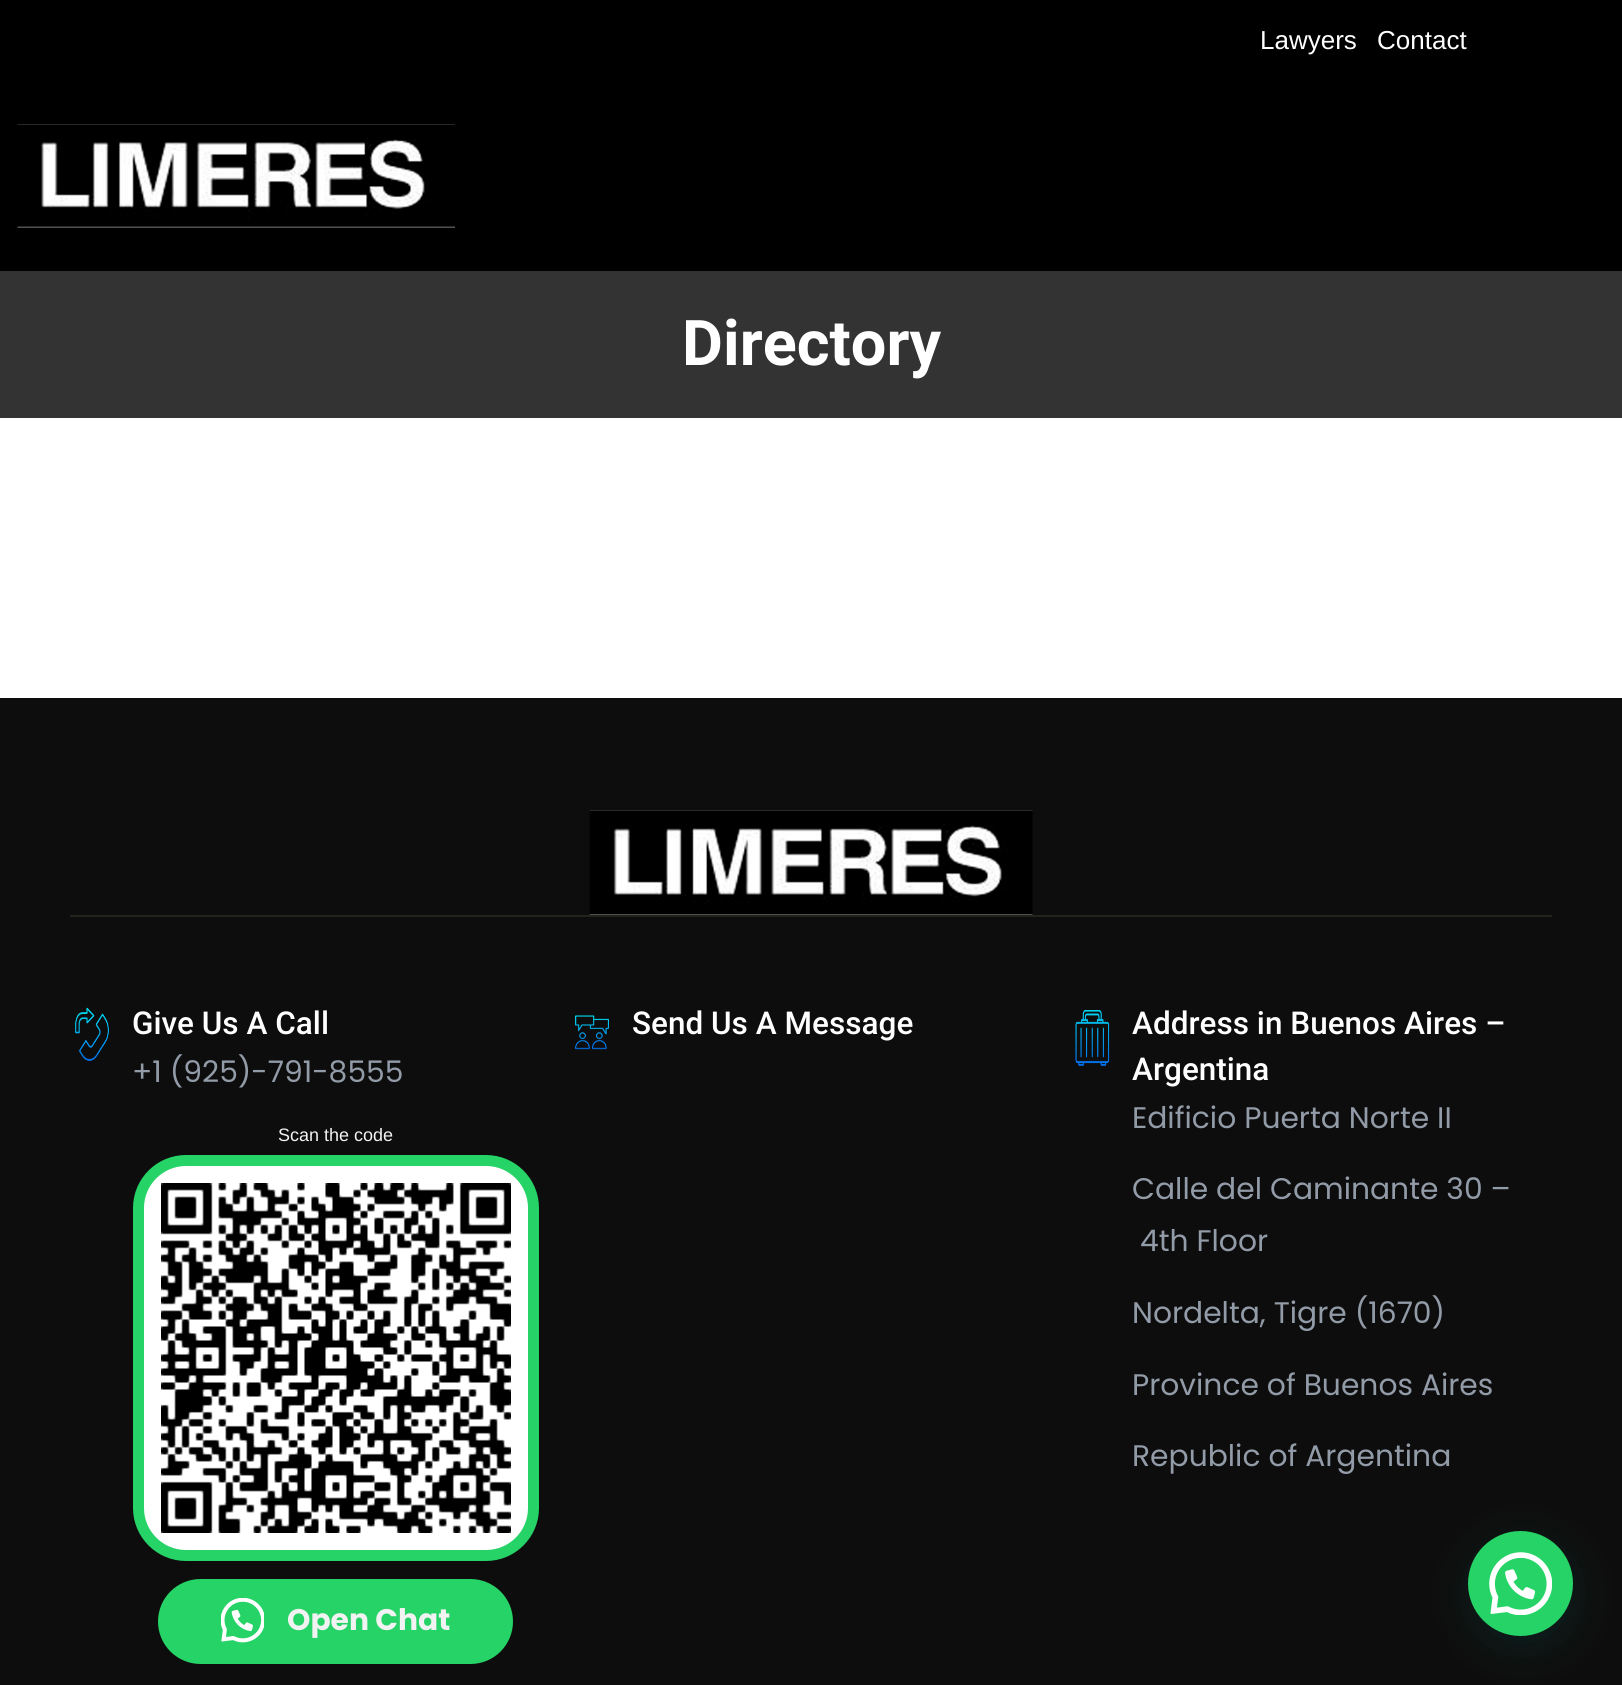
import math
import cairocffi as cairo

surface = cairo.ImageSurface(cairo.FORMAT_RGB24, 1622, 1685)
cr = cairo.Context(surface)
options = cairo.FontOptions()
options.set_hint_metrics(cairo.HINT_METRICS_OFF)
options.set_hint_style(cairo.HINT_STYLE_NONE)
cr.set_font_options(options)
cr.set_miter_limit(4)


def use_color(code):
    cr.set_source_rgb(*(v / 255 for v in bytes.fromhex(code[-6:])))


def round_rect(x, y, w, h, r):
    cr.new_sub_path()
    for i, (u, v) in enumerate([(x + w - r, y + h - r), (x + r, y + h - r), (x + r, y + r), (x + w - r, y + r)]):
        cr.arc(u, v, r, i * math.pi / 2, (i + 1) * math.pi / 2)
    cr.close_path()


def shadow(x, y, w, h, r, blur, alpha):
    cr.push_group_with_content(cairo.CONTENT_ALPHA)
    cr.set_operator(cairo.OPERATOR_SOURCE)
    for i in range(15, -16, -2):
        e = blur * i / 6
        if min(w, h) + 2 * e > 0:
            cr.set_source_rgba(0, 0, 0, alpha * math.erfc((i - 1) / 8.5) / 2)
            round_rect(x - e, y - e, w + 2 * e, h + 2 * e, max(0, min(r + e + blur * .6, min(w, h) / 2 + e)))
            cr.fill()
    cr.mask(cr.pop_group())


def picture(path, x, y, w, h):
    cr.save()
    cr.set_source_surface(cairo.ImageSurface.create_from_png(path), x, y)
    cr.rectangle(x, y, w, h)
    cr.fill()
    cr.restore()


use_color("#ffffff")
cr.paint()
use_color("#000000")
cr.rectangle(0, 0, 1622, 271)
cr.fill()
cr.select_font_face("Liberation Sans")
cr.set_font_size(26)
use_color("#ffffff")
cr.move_to(1260, 49)
cr.show_text("Lawyers")
cr.move_to(1377, 49)
cr.show_text("Contact")
picture("img1.png", 17, 124, 438, 104)
use_color("#333333")
cr.rectangle(0, 271, 1622, 147)
cr.fill()
cr.select_font_face("Roboto", cairo.FONT_SLANT_NORMAL, cairo.FONT_WEIGHT_BOLD)
cr.set_font_size(63)
use_color("#ffffff")
cr.move_to(682, 365)
cr.show_text("Directory")
use_color("#0e0d0d")
cr.rectangle(0, 698, 1622, 987)
cr.fill()
picture("img2.png", 589, 810, 444, 105)
use_color("#24221f")
cr.rectangle(70, 915, 1482, 2)
cr.fill()
picture("img3.png", 75, 1007, 34, 54)
cr.select_font_face("Roboto Medium")
cr.set_font_size(31.5)
use_color("#ffffff")
cr.move_to(132, 1034)
cr.show_text("Give Us A Call")
cr.select_font_face("Poppins")
cr.set_font_size(29.75)
use_color("#929ba8")
cr.move_to(132, 1082)
cr.show_text("+1 (925)-791-8555")
cr.select_font_face("Liberation Sans")
cr.set_font_size(18)
use_color("#f2f2f2")
cr.move_to(278, 1141)
cr.show_text("Scan the code")
use_color("#ffffff")
round_rect(138.5, 1160.5, 395, 395, 47.5)
cr.fill_preserve()
use_color("#25d366")
cr.set_line_width(11)
cr.stroke()
picture("img4.png", 161, 1183, 350, 350)
round_rect(163.5, 1584.5, 344, 74, 37)
cr.fill_preserve()
cr.stroke()
picture("img5.png", 221, 1598, 43, 45)
cr.select_font_face("Poppins", cairo.FONT_SLANT_NORMAL, cairo.FONT_WEIGHT_BOLD)
cr.set_font_size(29.75)
use_color("#f2f2f2")
cr.move_to(287, 1630)
cr.show_text("Open Chat")
picture("img6.png", 575, 1015, 34, 35)
cr.select_font_face("Roboto Medium")
cr.set_font_size(31.5)
use_color("#ffffff")
cr.move_to(632, 1034)
cr.show_text("Send Us A Message")
picture("img7.png", 1075, 1010, 35, 56)
cr.move_to(1132, 1034)
cr.show_text("Address in Buenos Aires –")
cr.move_to(1132, 1080)
cr.show_text("Argentina")
cr.select_font_face("Poppins")
cr.set_font_size(29.75)
use_color("#929ba8")
cr.move_to(1132, 1128)
cr.show_text("Edificio Puerta Norte II")
cr.move_to(1132, 1199)
cr.show_text("Calle del Caminante 30 –")
cr.move_to(1140, 1251)
cr.show_text("4th Floor")
cr.move_to(1132, 1323)
cr.show_text("Nordelta, Tigre (1670)")
cr.move_to(1132, 1395)
cr.show_text("Province of Buenos Aires")
cr.move_to(1132, 1466)
cr.show_text("Republic of Argentina")
use_color("#075e54")
shadow(1470, 1542, 105, 105, 52.5, 21, 0.24)
use_color("#25d366")
cr.arc(1520.5, 1583.5, 52.5, 0, 2 * math.pi)
cr.fill()
picture("img8.png", 1489, 1552, 63, 63)
surface.write_to_png("result.png")
